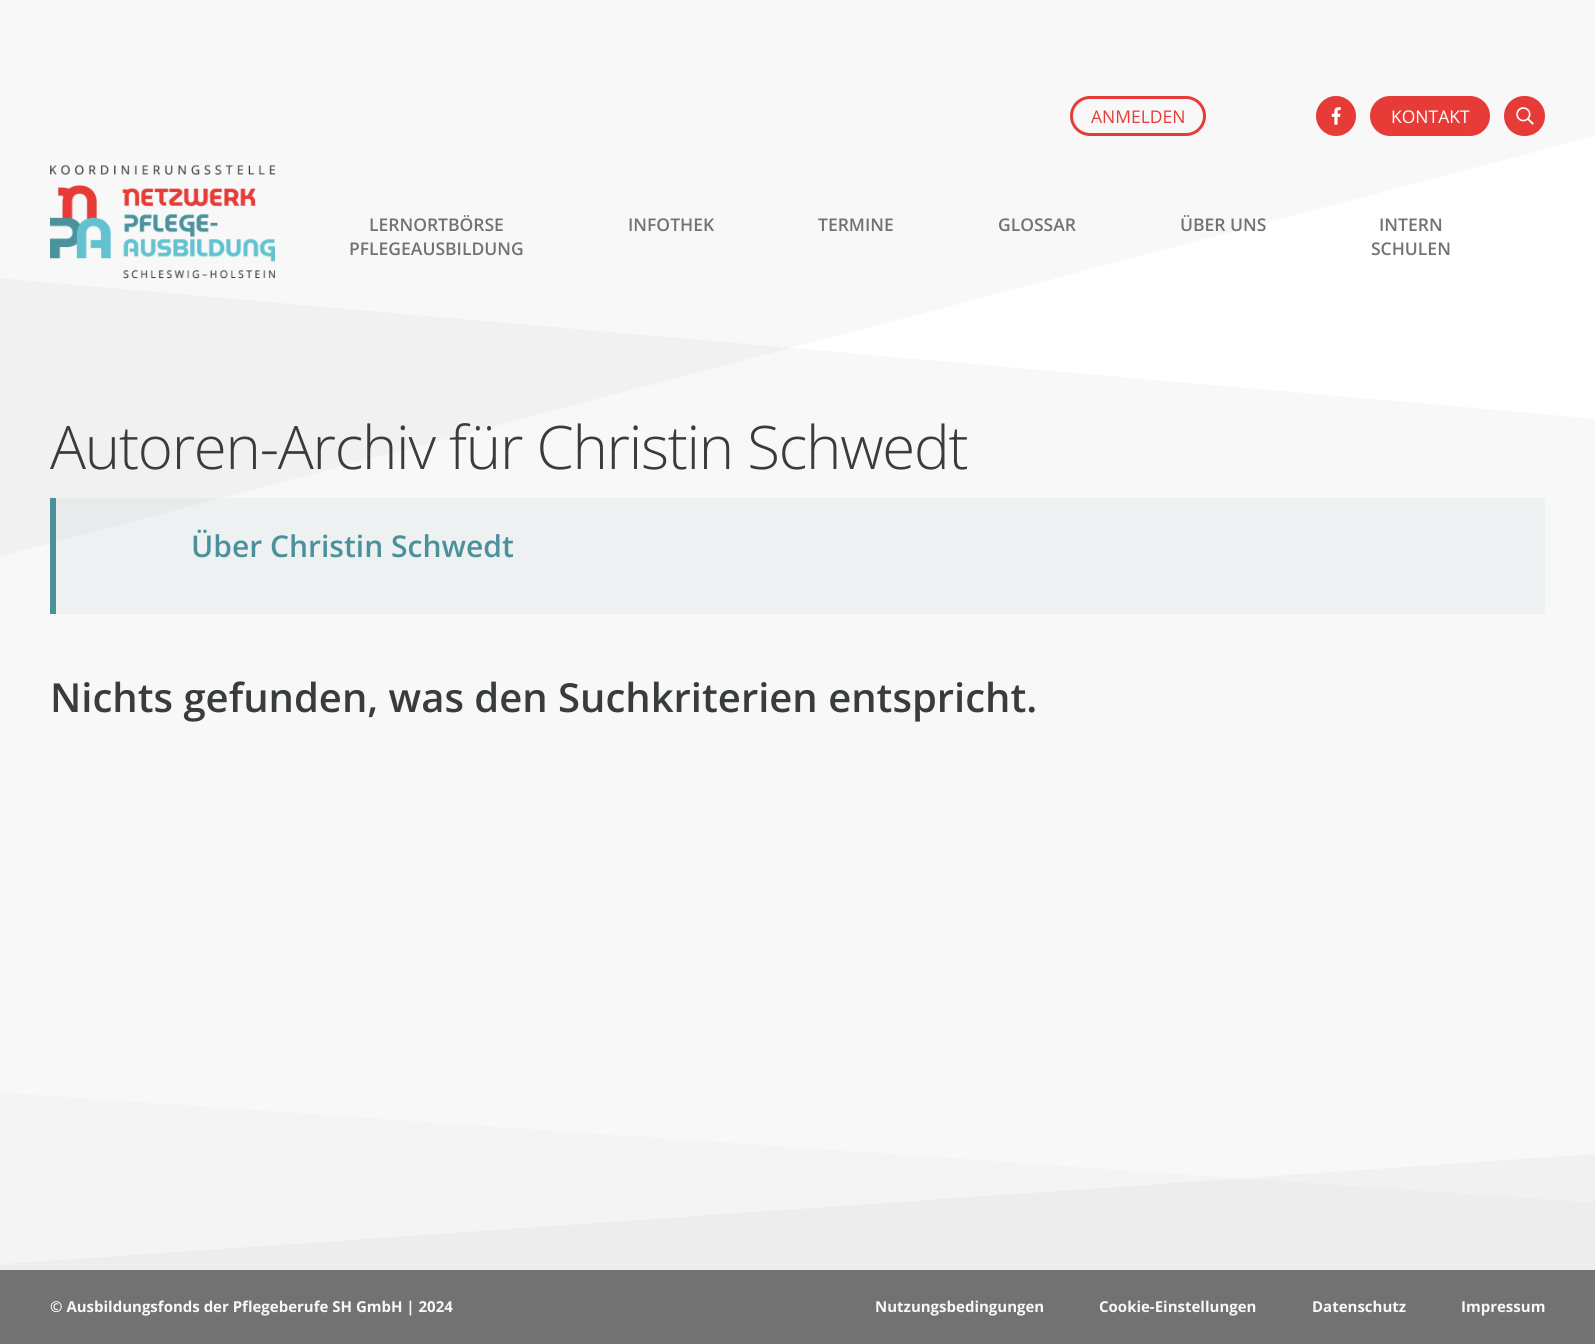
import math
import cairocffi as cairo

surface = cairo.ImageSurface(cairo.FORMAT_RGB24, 1595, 1344)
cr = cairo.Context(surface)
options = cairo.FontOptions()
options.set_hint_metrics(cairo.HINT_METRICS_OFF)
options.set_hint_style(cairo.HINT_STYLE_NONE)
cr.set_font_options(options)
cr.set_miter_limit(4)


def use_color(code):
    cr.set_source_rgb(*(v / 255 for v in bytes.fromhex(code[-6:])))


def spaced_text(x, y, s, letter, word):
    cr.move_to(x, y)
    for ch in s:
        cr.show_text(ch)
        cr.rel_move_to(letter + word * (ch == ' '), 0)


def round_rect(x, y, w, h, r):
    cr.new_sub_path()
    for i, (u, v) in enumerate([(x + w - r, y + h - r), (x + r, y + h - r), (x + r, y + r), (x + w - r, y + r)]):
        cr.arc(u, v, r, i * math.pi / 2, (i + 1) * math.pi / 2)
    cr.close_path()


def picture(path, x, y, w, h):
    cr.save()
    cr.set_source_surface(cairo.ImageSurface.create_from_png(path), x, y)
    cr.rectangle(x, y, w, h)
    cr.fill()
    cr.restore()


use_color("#f8f8f8")
cr.paint()
picture("img1.png", 0, 136, 1595, 1134)
round_rect(1071.5, 97.5, 133, 37, 18.5)
use_color("#e63b37")
cr.set_line_width(3)
cr.stroke()
cr.select_font_face("Open Sans")
cr.set_font_size(17.5)
cr.move_to(1091, 123)
cr.show_text("ANMELDEN")
cr.new_path()
cr.arc(1336, 116, 18.5, 0, 2 * math.pi)
cr.fill_preserve()
cr.stroke()
picture("img2.png", 1331, 107, 10, 18)
round_rect(1371.5, 97.5, 117, 37, 18.5)
cr.fill_preserve()
cr.stroke()
use_color("#ffffff")
cr.move_to(1391, 123)
cr.show_text("KONTAKT")
use_color("#e63b37")
round_rect(1505.5, 97.5, 38, 37, 18.5)
cr.fill_preserve()
cr.stroke()
picture("img3.png", 1516, 107, 18, 18)
picture("img4.png", 50, 164, 225, 115)
cr.select_font_face("Open Sans SemiBold")
use_color("#737272")
cr.move_to(369, 231)
cr.show_text("LERNORTBÖRSE")
cr.move_to(349, 255)
cr.show_text("PFLEGEAUSBILDUNG")
cr.move_to(628, 231)
cr.show_text("INFOTHEK")
cr.move_to(818, 231)
cr.show_text("TERMINE")
cr.move_to(998, 231)
cr.show_text("GLOSSAR")
cr.move_to(1180, 231)
cr.show_text("ÜBER UNS")
cr.move_to(1379, 231)
cr.show_text("INTERN")
cr.move_to(1371, 255)
cr.show_text("SCHULEN")
cr.select_font_face("Open Sans Light")
cr.set_font_size(60)
use_color("#383c3c")
spaced_text(50, 469, "Autoren-Archiv für Christin Schwedt", -1.25, 0)
cr.set_source_rgba(0.294, 0.569, 0.612, 0.06)
cr.rectangle(56, 498, 1489, 116)
cr.fill()
use_color("#4b919c")
cr.rectangle(50, 498, 6, 116)
cr.fill()
cr.select_font_face("Open Sans SemiBold")
cr.set_font_size(30)
cr.move_to(191, 557)
cr.show_text("Über Christin Schwedt")
cr.set_font_size(40)
use_color("#383c3c")
cr.move_to(50, 712)
cr.show_text("Nichts gefunden, was den Suchkriterien entspricht.")
use_color("#737272")
cr.rectangle(0, 1270, 1595, 74)
cr.fill()
cr.select_font_face("Open Sans", cairo.FONT_SLANT_NORMAL, cairo.FONT_WEIGHT_BOLD)
cr.set_font_size(15)
use_color("#f8f8f8")
cr.move_to(50, 1312)
cr.show_text("© Ausbildungsfonds der Pflegeberufe SH GmbH | 2024")
cr.move_to(875, 1312)
cr.show_text("Nutzungsbedingungen")
cr.move_to(1099, 1312)
cr.show_text("Cookie-Einstellungen")
cr.move_to(1312, 1312)
cr.show_text("Datenschutz")
cr.move_to(1461, 1312)
cr.show_text("Impressum")
surface.write_to_png("result.png")
